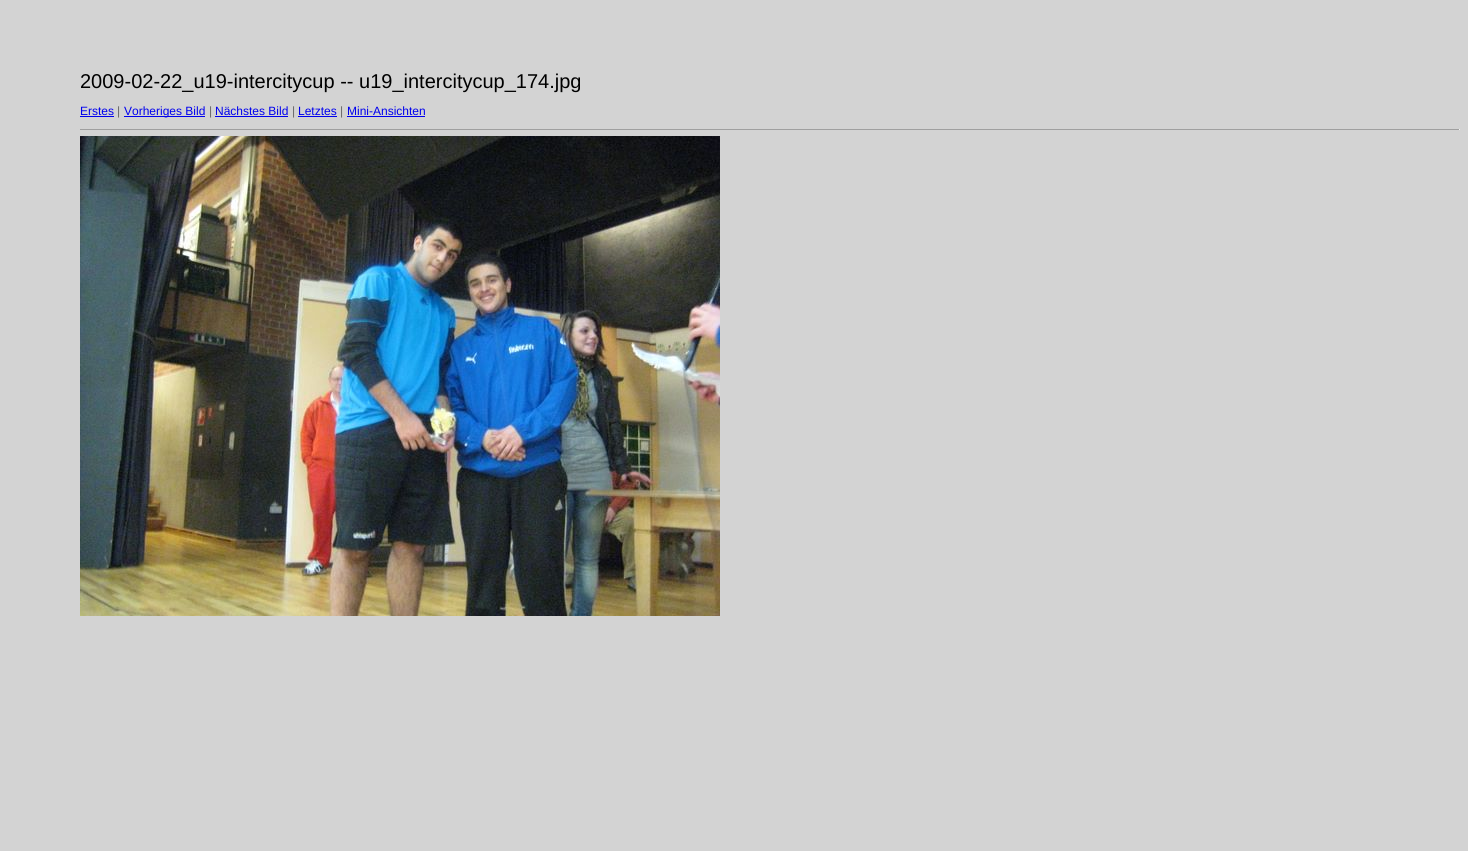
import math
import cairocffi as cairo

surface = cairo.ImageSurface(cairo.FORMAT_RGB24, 1468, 851)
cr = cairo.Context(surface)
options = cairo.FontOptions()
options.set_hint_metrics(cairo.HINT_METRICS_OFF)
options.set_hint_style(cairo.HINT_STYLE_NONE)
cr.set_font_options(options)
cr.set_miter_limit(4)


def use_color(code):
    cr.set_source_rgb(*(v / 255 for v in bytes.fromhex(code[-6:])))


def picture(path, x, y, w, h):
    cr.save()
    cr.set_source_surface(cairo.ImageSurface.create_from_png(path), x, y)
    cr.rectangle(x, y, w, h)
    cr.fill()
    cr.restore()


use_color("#d3d3d3")
cr.paint()
cr.select_font_face("Liberation Sans")
cr.set_font_size(20)
use_color("#000000")
cr.move_to(80, 88)
cr.show_text("2009-02-22_u19-intercitycup -- u19_intercitycup_174.jpg")
cr.set_font_size(12)
use_color("#0000ee")
cr.move_to(80, 115)
cr.show_text("Erstes")
cr.rectangle(80, 116, 34, 1)
cr.fill()
use_color("#666666")
cr.move_to(117, 115)
cr.show_text("|")
use_color("#0000ee")
cr.rectangle(124, 116, 81, 1)
cr.fill()
cr.move_to(124, 115)
cr.show_text("Vorheriges Bild")
use_color("#666666")
cr.move_to(209, 115)
cr.show_text("|")
use_color("#0000ee")
cr.move_to(215, 115)
cr.show_text("Nächstes Bild")
cr.rectangle(215, 116, 73, 1)
cr.fill()
use_color("#666666")
cr.move_to(292, 115)
cr.show_text("|")
use_color("#0000ee")
cr.move_to(298, 115)
cr.show_text("Letztes")
cr.rectangle(298, 116, 39, 1)
cr.fill()
use_color("#666666")
cr.move_to(340, 115)
cr.show_text("|")
use_color("#0000ee")
cr.move_to(347, 115)
cr.show_text("Mini-Ansichten")
cr.rectangle(347, 116, 78, 1)
cr.fill()
use_color("#9f9f9f")
cr.rectangle(80, 129, 1380, 1)
cr.fill()
use_color("#eeeeee")
cr.rectangle(1459, 129, 1, 1)
cr.fill()
picture("img1.png", 80, 136, 640, 480)
surface.write_to_png("result.png")
